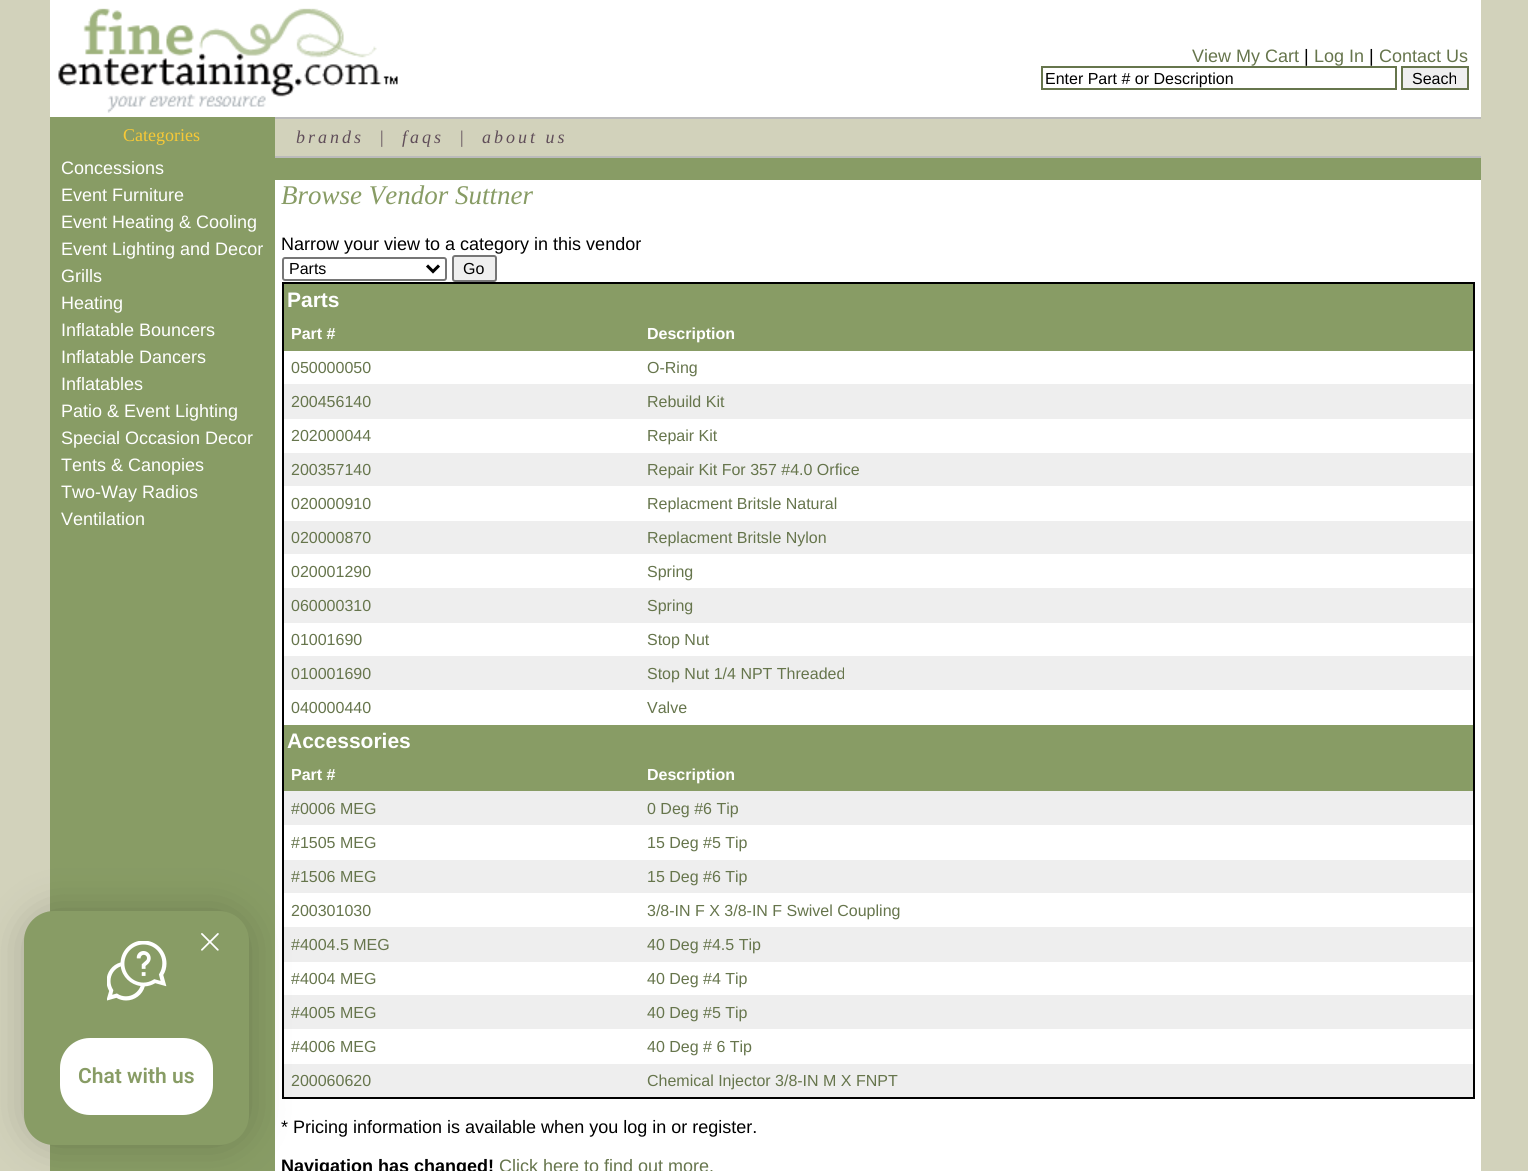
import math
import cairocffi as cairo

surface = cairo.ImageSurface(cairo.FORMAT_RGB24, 1528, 1171)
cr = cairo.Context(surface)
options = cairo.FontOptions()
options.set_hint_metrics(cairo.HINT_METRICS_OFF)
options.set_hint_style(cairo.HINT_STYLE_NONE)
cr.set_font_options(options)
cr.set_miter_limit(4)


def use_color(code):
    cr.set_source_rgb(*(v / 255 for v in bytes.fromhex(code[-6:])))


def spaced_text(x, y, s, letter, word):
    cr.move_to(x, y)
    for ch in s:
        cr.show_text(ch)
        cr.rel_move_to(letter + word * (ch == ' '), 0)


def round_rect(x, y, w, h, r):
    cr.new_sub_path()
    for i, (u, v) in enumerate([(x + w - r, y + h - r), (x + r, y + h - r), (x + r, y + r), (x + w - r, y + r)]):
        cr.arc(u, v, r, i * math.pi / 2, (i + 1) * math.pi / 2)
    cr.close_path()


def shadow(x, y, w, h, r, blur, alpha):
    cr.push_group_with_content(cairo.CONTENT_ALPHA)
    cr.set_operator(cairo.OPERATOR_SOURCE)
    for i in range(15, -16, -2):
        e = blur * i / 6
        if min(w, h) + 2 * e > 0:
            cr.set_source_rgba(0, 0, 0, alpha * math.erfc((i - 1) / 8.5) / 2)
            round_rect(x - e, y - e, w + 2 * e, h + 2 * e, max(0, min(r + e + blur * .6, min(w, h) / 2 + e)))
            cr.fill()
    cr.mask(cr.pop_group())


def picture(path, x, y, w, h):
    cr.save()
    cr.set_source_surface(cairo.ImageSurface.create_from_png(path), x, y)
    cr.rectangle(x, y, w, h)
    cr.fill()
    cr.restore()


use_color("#d2d2bb")
cr.paint()
use_color("#ffffff")
cr.rectangle(50, 0, 1431, 117)
cr.fill()
picture("img1.png", 58, 8, 340, 105)
cr.select_font_face("Liberation Sans")
cr.set_font_size(18)
use_color("#66754c")
cr.move_to(1192, 62)
cr.show_text("View My Cart")
use_color("#000000")
cr.move_to(1304, 62)
cr.show_text("|")
use_color("#66754c")
cr.move_to(1314, 62)
cr.show_text("Log In")
use_color("#000000")
cr.move_to(1369, 62)
cr.show_text("|")
use_color("#66754c")
cr.move_to(1379, 62)
cr.show_text("Contact Us")
cr.rectangle(1042, 67, 354, 22)
cr.stroke()
cr.set_font_size(16)
use_color("#000000")
cr.move_to(1045, 84)
cr.show_text("Enter Part # or Description")
use_color("#efefef")
cr.rectangle(1402, 67, 66, 22)
cr.fill_preserve()
use_color("#66754c")
cr.stroke()
use_color("#000000")
cr.move_to(1412, 84)
cr.show_text("Seach")
use_color("#889c65")
cr.rectangle(50, 117, 1431, 1054)
cr.fill()
cr.select_font_face("Liberation Serif")
cr.set_font_size(18)
use_color("#f7c936")
cr.move_to(123, 141)
cr.show_text("Categories")
cr.select_font_face("Liberation Sans")
use_color("#ffffff")
cr.move_to(61, 174)
cr.show_text("Concessions")
cr.move_to(61, 201)
cr.show_text("Event Furniture")
cr.move_to(61, 228)
cr.show_text("Event Heating & Cooling")
cr.move_to(61, 255)
cr.show_text("Event Lighting and Decor")
cr.move_to(61, 282)
cr.show_text("Grills")
cr.move_to(61, 309)
cr.show_text("Heating")
cr.move_to(61, 336)
cr.show_text("Inflatable Bouncers")
cr.move_to(61, 363)
cr.show_text("Inflatable Dancers")
cr.move_to(61, 390)
cr.show_text("Inflatables")
cr.move_to(61, 417)
cr.show_text("Patio & Event Lighting")
cr.move_to(61, 444)
cr.show_text("Special Occasion Decor")
cr.move_to(61, 471)
cr.show_text("Tents & Canopies")
cr.move_to(61, 498)
cr.show_text("Two-Way Radios")
cr.move_to(61, 525)
cr.show_text("Ventilation")
use_color("#d2d2bb")
cr.rectangle(275, 119, 1206, 37)
cr.fill()
use_color("#bbbbbb")
cr.rectangle(275, 117, 1206, 2)
cr.fill()
cr.rectangle(275, 156, 1206, 2)
cr.fill()
cr.select_font_face("Liberation Serif", cairo.FONT_SLANT_ITALIC)
use_color("#604e59")
spaced_text(296, 143, "brands", 3, 0)
spaced_text(379, 143, "|", 3, 0)
spaced_text(402, 143, "faqs", 3, 0)
spaced_text(459, 143, "|", 3, 0)
spaced_text(482, 143, "about us", 3, 0)
use_color("#ffffff")
cr.rectangle(275, 180, 1206, 991)
cr.fill()
cr.set_font_size(27)
use_color("#889c65")
cr.move_to(281, 204)
cr.show_text("Browse Vendor Suttner")
cr.select_font_face("Liberation Sans")
cr.set_font_size(18)
use_color("#000000")
cr.move_to(281, 250)
cr.show_text("Narrow your view to a category in this vendor")
round_rect(283, 258, 163, 22, 2)
use_color("#767676")
cr.stroke()
cr.new_path()
cr.move_to(427, 265.5)
cr.line_to(433, 271.5)
cr.line_to(439, 265.5)
use_color("#000000")
cr.set_line_width(3)
cr.stroke()
cr.set_font_size(16)
cr.move_to(289, 274)
cr.show_text("Parts")
use_color("#efefef")
round_rect(453, 256, 43, 25, 2)
cr.fill_preserve()
use_color("#767676")
cr.set_line_width(2)
cr.stroke()
use_color("#000000")
cr.move_to(463, 274)
cr.show_text("Go")
cr.rectangle(282, 282, 1193, 2)
cr.fill()
cr.rectangle(1473, 282, 2, 816)
cr.fill()
cr.rectangle(282, 1097, 1193, 2)
cr.fill()
cr.rectangle(282, 282, 2, 816)
cr.fill()
use_color("#889c65")
cr.rectangle(284, 284, 1189, 33)
cr.fill()
cr.select_font_face("Liberation Sans", cairo.FONT_SLANT_NORMAL, cairo.FONT_WEIGHT_BOLD)
cr.set_font_size(21)
use_color("#ffffff")
cr.move_to(287, 307)
cr.show_text("Parts")
use_color("#889c65")
cr.rectangle(284, 317, 1189, 34)
cr.fill()
cr.set_font_size(16)
use_color("#ffffff")
cr.move_to(291, 339)
cr.show_text("Part #")
cr.move_to(647, 339)
cr.show_text("Description")
cr.select_font_face("Liberation Sans")
use_color("#66754c")
cr.move_to(291, 373)
cr.show_text("050000050")
cr.move_to(647, 373)
cr.show_text("O-Ring")
use_color("#eeeeee")
cr.rectangle(284, 384, 1189, 35)
cr.fill()
use_color("#66754c")
cr.move_to(291, 407)
cr.show_text("200456140")
cr.move_to(647, 407)
cr.show_text("Rebuild Kit")
cr.move_to(291, 441)
cr.show_text("202000044")
cr.move_to(647, 441)
cr.show_text("Repair Kit")
use_color("#eeeeee")
cr.rectangle(284, 453, 1189, 33)
cr.fill()
use_color("#66754c")
cr.move_to(291, 475)
cr.show_text("200357140")
cr.move_to(647, 475)
cr.show_text("Repair Kit For 357 #4.0 Orfice")
cr.move_to(291, 509)
cr.show_text("020000910")
cr.move_to(647, 509)
cr.show_text("Replacment Britsle Natural")
use_color("#eeeeee")
cr.rectangle(284, 521, 1189, 33)
cr.fill()
use_color("#66754c")
cr.move_to(291, 543)
cr.show_text("020000870")
cr.move_to(647, 543)
cr.show_text("Replacment Britsle Nylon")
cr.move_to(291, 577)
cr.show_text("020001290")
cr.move_to(647, 577)
cr.show_text("Spring")
use_color("#eeeeee")
cr.rectangle(284, 588, 1189, 35)
cr.fill()
use_color("#66754c")
cr.move_to(291, 611)
cr.show_text("060000310")
cr.move_to(647, 611)
cr.show_text("Spring")
cr.move_to(291, 645)
cr.show_text("01001690")
cr.move_to(647, 645)
cr.show_text("Stop Nut")
use_color("#eeeeee")
cr.rectangle(284, 656, 1189, 34)
cr.fill()
use_color("#66754c")
cr.move_to(291, 679)
cr.show_text("010001690")
cr.move_to(647, 679)
cr.show_text("Stop Nut 1/4 NPT Threaded")
cr.move_to(291, 713)
cr.show_text("040000440")
cr.move_to(647, 713)
cr.show_text("Valve")
use_color("#889c65")
cr.rectangle(284, 725, 1189, 33)
cr.fill()
cr.select_font_face("Liberation Sans", cairo.FONT_SLANT_NORMAL, cairo.FONT_WEIGHT_BOLD)
cr.set_font_size(21)
use_color("#ffffff")
cr.move_to(287, 748)
cr.show_text("Accessories")
use_color("#889c65")
cr.rectangle(284, 758, 1189, 33)
cr.fill()
cr.set_font_size(16)
use_color("#ffffff")
cr.move_to(291, 780)
cr.show_text("Part #")
cr.move_to(647, 780)
cr.show_text("Description")
use_color("#eeeeee")
cr.rectangle(284, 791, 1189, 34)
cr.fill()
cr.select_font_face("Liberation Sans")
use_color("#66754c")
cr.move_to(291, 814)
cr.show_text("#0006 MEG")
cr.move_to(647, 814)
cr.show_text("0 Deg #6 Tip")
cr.move_to(291, 848)
cr.show_text("#1505 MEG")
cr.move_to(647, 848)
cr.show_text("15 Deg #5 Tip")
use_color("#eeeeee")
cr.rectangle(284, 860, 1189, 33)
cr.fill()
use_color("#66754c")
cr.move_to(291, 882)
cr.show_text("#1506 MEG")
cr.move_to(647, 882)
cr.show_text("15 Deg #6 Tip")
cr.move_to(291, 916)
cr.show_text("200301030")
cr.move_to(647, 916)
cr.show_text("3/8-IN F X 3/8-IN F Swivel Coupling")
use_color("#eeeeee")
cr.rectangle(284, 927, 1189, 35)
cr.fill()
use_color("#66754c")
cr.move_to(291, 950)
cr.show_text("#4004.5 MEG")
cr.move_to(647, 950)
cr.show_text("40 Deg #4.5 Tip")
cr.move_to(291, 984)
cr.show_text("#4004 MEG")
cr.move_to(647, 984)
cr.show_text("40 Deg #4 Tip")
use_color("#eeeeee")
cr.rectangle(284, 995, 1189, 34)
cr.fill()
use_color("#66754c")
cr.move_to(291, 1018)
cr.show_text("#4005 MEG")
cr.move_to(647, 1018)
cr.show_text("40 Deg #5 Tip")
cr.move_to(291, 1052)
cr.show_text("#4006 MEG")
cr.move_to(647, 1052)
cr.show_text("40 Deg # 6 Tip")
use_color("#eeeeee")
cr.rectangle(284, 1064, 1189, 33)
cr.fill()
use_color("#66754c")
cr.move_to(291, 1086)
cr.show_text("200060620")
cr.move_to(647, 1086)
cr.show_text("Chemical Injector 3/8-IN M X FNPT")
cr.set_font_size(18)
use_color("#000000")
cr.move_to(281, 1133)
cr.show_text("* Pricing information is available when you log in or register.")
cr.select_font_face("Liberation Sans", cairo.FONT_SLANT_NORMAL, cairo.FONT_WEIGHT_BOLD)
cr.move_to(281, 1172)
cr.show_text("Navigation has changed!")
cr.select_font_face("Liberation Sans")
use_color("#66754c")
cr.move_to(499, 1172)
cr.show_text("Click here to find out more.")
use_color("#000000")
shadow(24, 911, 225, 234, 30, 20, 0.19)
use_color("#889c65")
round_rect(24, 911, 225, 234, 30)
cr.fill()
picture("img2.png", 107, 941, 60, 60)
picture("img3.png", 201, 933, 18, 18)
use_color("#ffffff")
round_rect(61.5, 1039.5, 150, 74, 28.5)
cr.fill_preserve()
cr.set_line_width(3)
cr.stroke()
cr.select_font_face("Roboto SemiBold")
cr.set_font_size(21)
use_color("#889c65")
cr.move_to(78, 1083)
cr.show_text("Chat with us")
surface.write_to_png("result.png")
